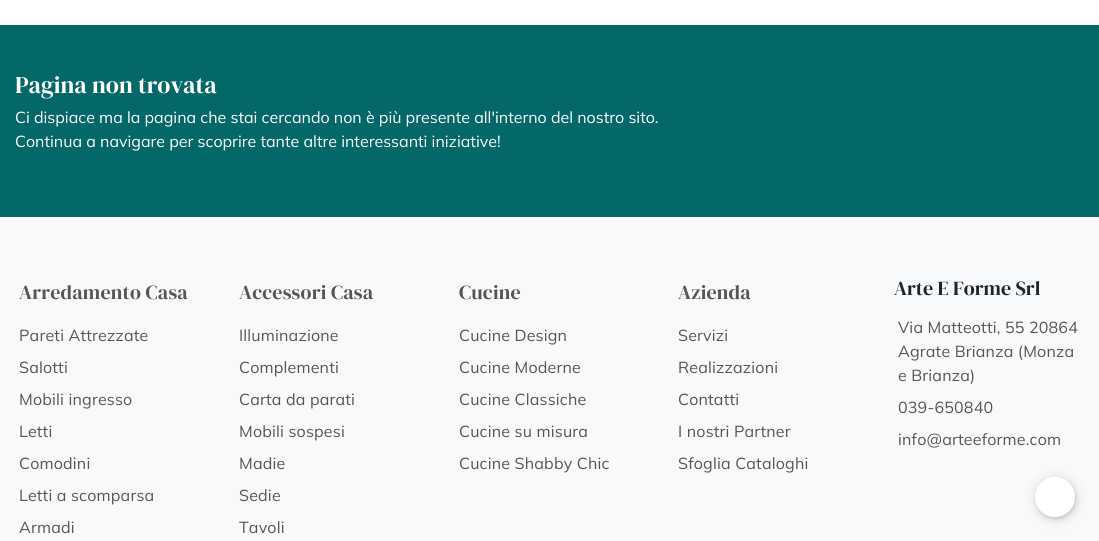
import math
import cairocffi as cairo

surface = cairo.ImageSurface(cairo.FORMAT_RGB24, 1099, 541)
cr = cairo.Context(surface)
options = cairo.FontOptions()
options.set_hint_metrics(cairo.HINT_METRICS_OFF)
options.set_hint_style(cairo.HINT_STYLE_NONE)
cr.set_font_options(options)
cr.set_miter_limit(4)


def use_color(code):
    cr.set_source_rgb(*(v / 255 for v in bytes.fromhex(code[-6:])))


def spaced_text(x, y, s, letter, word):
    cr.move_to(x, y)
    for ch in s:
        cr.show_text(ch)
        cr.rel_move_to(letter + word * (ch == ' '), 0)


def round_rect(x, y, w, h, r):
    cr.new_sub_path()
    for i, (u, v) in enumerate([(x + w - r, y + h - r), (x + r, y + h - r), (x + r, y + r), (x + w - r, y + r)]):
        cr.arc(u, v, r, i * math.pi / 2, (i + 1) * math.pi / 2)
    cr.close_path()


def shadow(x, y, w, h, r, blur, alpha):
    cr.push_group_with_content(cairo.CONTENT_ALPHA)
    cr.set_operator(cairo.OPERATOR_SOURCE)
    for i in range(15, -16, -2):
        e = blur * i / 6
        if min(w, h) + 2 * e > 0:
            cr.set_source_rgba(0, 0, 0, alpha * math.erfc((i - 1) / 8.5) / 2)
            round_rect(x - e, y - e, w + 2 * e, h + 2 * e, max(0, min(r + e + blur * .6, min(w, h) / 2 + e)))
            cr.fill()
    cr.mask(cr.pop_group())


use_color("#ffffff")
cr.paint()
use_color("#046768")
cr.rectangle(0, 25, 1099, 192)
cr.fill()
cr.select_font_face("DM Serif Display")
cr.set_font_size(24)
use_color("#ffffff")
cr.move_to(15, 93)
cr.show_text("Pagina non trovata")
cr.select_font_face("Mulish")
cr.set_font_size(16)
cr.move_to(15, 123)
cr.show_text("Ci dispiace ma la pagina che stai cercando non è più presente all'interno del nostro sito.")
cr.move_to(15, 147)
cr.show_text("Continua a navigare per scoprire tante altre interessanti iniziative!")
use_color("#f8f9fa")
cr.rectangle(0, 217, 1099, 324)
cr.fill()
cr.select_font_face("DM Serif Display")
cr.set_font_size(20)
use_color("#555555")
spaced_text(19, 299, "Arredamento Casa", 0.2, 0)
cr.select_font_face("Mulish")
cr.set_font_size(16)
spaced_text(19, 341, "Pareti Attrezzate", 0.2, 0)
spaced_text(19, 373, "Salotti", 0.2, 0)
spaced_text(19, 405, "Mobili ingresso", 0.2, 0)
spaced_text(19, 437, "Letti", 0.2, 0)
spaced_text(19, 469, "Comodini", 0.2, 0)
spaced_text(19, 501, "Letti a scomparsa", 0.2, 0)
spaced_text(19, 533, "Armadi", 0.2, 0)
cr.select_font_face("DM Serif Display")
cr.set_font_size(20)
spaced_text(239, 299, "Accessori Casa", 0.2, 0)
cr.select_font_face("Mulish")
cr.set_font_size(16)
spaced_text(239, 341, "Illuminazione", 0.2, 0)
spaced_text(239, 373, "Complementi", 0.2, 0)
spaced_text(239, 405, "Carta da parati", 0.2, 0)
spaced_text(239, 437, "Mobili sospesi", 0.2, 0)
spaced_text(239, 469, "Madie", 0.2, 0)
spaced_text(239, 501, "Sedie", 0.2, 0)
spaced_text(239, 533, "Tavoli", 0.2, 0)
cr.select_font_face("DM Serif Display")
cr.set_font_size(20)
spaced_text(459, 299, "Cucine", 0.2, 0)
cr.select_font_face("Mulish")
cr.set_font_size(16)
spaced_text(459, 341, "Cucine Design", 0.2, 0)
spaced_text(459, 373, "Cucine Moderne", 0.2, 0)
spaced_text(459, 405, "Cucine Classiche", 0.2, 0)
spaced_text(459, 437, "Cucine su misura", 0.2, 0)
spaced_text(459, 469, "Cucine Shabby Chic", 0.2, 0)
cr.select_font_face("DM Serif Display")
cr.set_font_size(20)
spaced_text(678, 299, "Azienda", 0.2, 0)
cr.select_font_face("Mulish")
cr.set_font_size(16)
spaced_text(678, 341, "Servizi", 0.2, 0)
spaced_text(678, 373, "Realizzazioni", 0.2, 0)
spaced_text(678, 405, "Contatti", 0.2, 0)
spaced_text(678, 437, "I nostri Partner", 0.2, 0)
spaced_text(678, 469, "Sfoglia Cataloghi", 0.2, 0)
cr.select_font_face("DM Serif Display")
cr.set_font_size(20)
use_color("#212529")
cr.move_to(894, 295)
cr.show_text("Arte E Forme Srl")
cr.select_font_face("Mulish")
cr.set_font_size(16)
use_color("#555555")
spaced_text(898, 333, "Via Matteotti, 55 20864", 0.2, 0)
spaced_text(898, 357, "Agrate Brianza (Monza", 0.2, 0)
spaced_text(898, 381, "e Brianza)", 0.2, 0)
spaced_text(898, 413, "039-650840", 0.2, 0)
spaced_text(898, 445, "info@arteeforme.com", 0.2, 0)
use_color("#000000")
shadow(1036, 479, 40, 40, 20, 1.5, 0.12)
shadow(1036, 479, 40, 40, 20, 6, 0.14)
use_color("#ffffff")
cr.arc(1055, 497, 20, 0, 2 * math.pi)
cr.fill()
surface.write_to_png("result.png")
